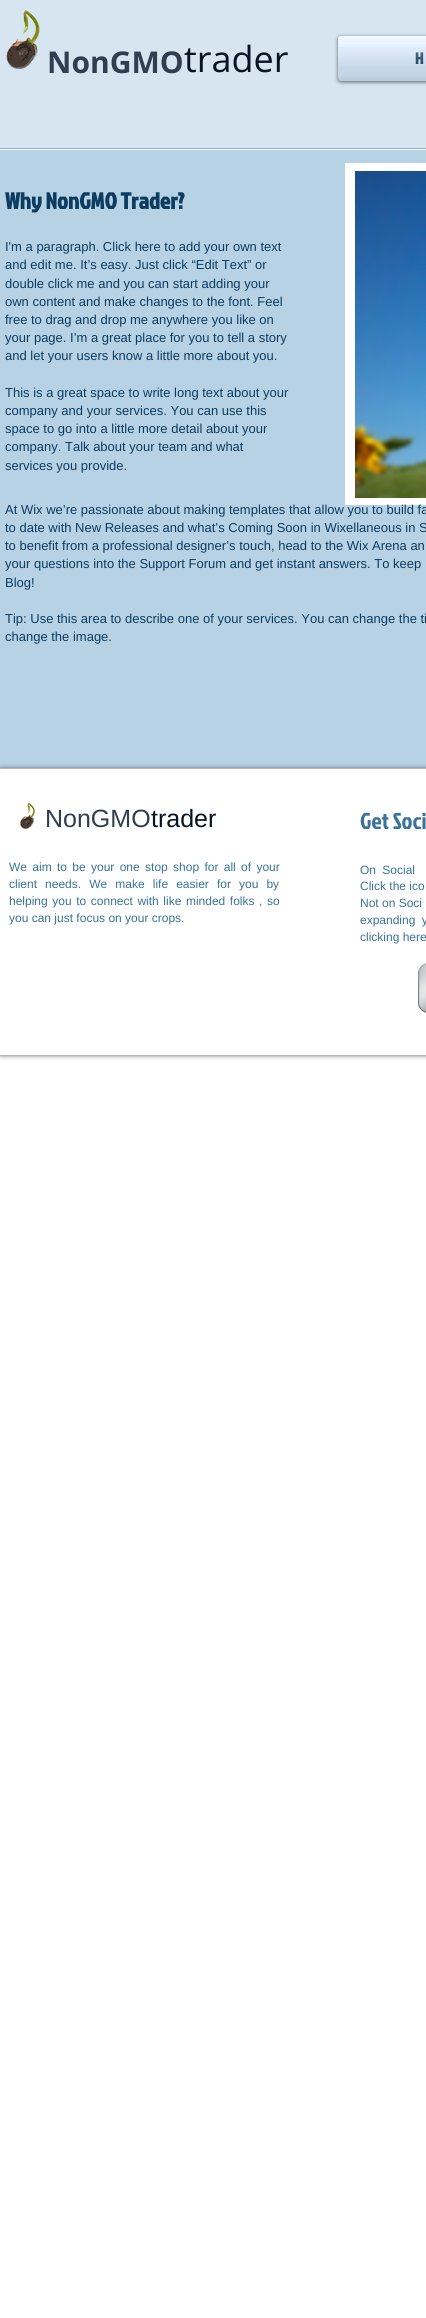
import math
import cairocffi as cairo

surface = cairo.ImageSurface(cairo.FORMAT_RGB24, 426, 2318)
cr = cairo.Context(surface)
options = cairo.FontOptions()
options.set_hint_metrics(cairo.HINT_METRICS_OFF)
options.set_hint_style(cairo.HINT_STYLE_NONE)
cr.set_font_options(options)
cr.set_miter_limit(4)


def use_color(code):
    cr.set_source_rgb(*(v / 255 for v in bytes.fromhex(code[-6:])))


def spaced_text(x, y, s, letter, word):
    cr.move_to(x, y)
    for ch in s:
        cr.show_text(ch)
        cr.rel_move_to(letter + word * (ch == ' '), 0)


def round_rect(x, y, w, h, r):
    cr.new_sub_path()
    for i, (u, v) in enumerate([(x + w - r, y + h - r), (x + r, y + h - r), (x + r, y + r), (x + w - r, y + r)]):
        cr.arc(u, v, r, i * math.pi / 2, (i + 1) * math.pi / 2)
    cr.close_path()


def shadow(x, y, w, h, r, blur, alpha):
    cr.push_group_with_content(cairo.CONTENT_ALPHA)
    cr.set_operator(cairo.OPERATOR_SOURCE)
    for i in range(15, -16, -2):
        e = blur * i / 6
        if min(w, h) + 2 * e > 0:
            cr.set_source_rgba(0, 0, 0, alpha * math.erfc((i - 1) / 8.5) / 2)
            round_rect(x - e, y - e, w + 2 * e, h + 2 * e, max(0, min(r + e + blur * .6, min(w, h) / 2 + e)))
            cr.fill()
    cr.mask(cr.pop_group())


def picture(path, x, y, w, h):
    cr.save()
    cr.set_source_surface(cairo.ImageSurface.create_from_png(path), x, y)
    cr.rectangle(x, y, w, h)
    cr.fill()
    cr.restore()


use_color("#ffffff")
cr.paint()
use_color("#d7e5f0")
cr.rectangle(0, 0, 426, 148)
cr.fill()
use_color("#88b4d4")
cr.rectangle(0, 148, 426, 1)
cr.fill()
picture("img1.png", 6, 10, 34, 60)
cr.select_font_face("Open Sans", cairo.FONT_SLANT_NORMAL, cairo.FONT_WEIGHT_BOLD)
cr.set_font_size(30)
use_color("#313e4f")
cr.move_to(47, 73)
cr.show_text("NonGMO")
cr.select_font_face("Open Sans")
cr.set_font_size(36)
use_color("#081423")
cr.move_to(184, 72)
cr.show_text("trader")
use_color("#000000")
shadow(338, 37, 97, 45, 3, 2, 0.6)
picture("img2.png", 338, 36, 3, 3)
picture("img3.png", 338, 78, 3, 3)
use_color("#daedff")
cr.new_path()
cr.move_to(341, 36)
cr.line_to(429, 36)
cr.line_to(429, 81)
cr.line_to(341, 81)
cr.curve_to(339.5, 81, 338, 79.5, 338, 78)
cr.line_to(338, 39)
cr.curve_to(338, 37.5, 339.5, 36, 341, 36)
cr.close_path()
cr.fill()
cr.select_font_face("Jockey One", cairo.FONT_SLANT_NORMAL, cairo.FONT_WEIGHT_BOLD)
cr.set_font_size(16)
use_color("#0c3c60")
cr.move_to(415, 64)
cr.show_text("H")
picture("img4.png", 338, 36, 88, 30)
picture("img5.png", 338, 47, 88, 34)
use_color("#b7d2e5")
cr.rectangle(0, 150, 426, 618)
cr.fill()
use_color("#ffffff")
cr.rectangle(345, 163, 81, 342)
cr.fill()
picture("img6.png", 355, 171, 71, 327)
cr.set_font_size(23)
use_color("#0c3c60")
cr.move_to(5, 209)
cr.show_text("Why NonGMO Trader?")
cr.select_font_face("Liberation Sans")
cr.set_font_size(13)
cr.move_to(5, 251)
cr.show_text("I'm a paragraph. Click here to add your own text")
cr.move_to(5, 269)
cr.show_text("and edit me. It’s easy. Just click “Edit Text” or")
cr.move_to(5, 288)
cr.show_text("double click me and you can start adding your")
cr.move_to(5, 306)
cr.show_text("own content and make changes to the font. Feel")
cr.move_to(5, 324)
cr.show_text("free to drag and drop me anywhere you like on")
cr.move_to(5, 342)
cr.show_text("your page. I’m a great place for you to tell a story")
cr.move_to(5, 360)
cr.show_text("and let your users know a little more about you.")
cr.move_to(5, 397)
cr.show_text("This is a great space to write long text about your")
cr.move_to(5, 415)
cr.show_text("company and your services. You can use this")
cr.move_to(5, 433)
cr.show_text("space to go into a little more detail about your")
cr.move_to(5, 451)
cr.show_text("company. Talk about your team and what")
cr.move_to(5, 470)
cr.show_text("services you provide.")
cr.move_to(5, 514)
cr.show_text("At Wix we’re passionate about making templates that allow you to build fa")
cr.move_to(5, 532)
cr.show_text("to date with New Releases and what’s Coming Soon in Wixellaneous in S")
cr.move_to(5, 550)
cr.show_text("to benefit from a professional designer’s touch, head to the Wix Arena an")
cr.move_to(5, 568)
cr.show_text("your questions into the Support Forum and get instant answers. To keep")
cr.move_to(5, 587)
cr.show_text("Blog!")
cr.move_to(5, 623)
cr.show_text("Tip: Use this area to describe one of your services. You can change the ti")
cr.move_to(5, 641)
cr.show_text("change the image.")
cr.save()
cr.set_fill_rule(cairo.FILL_RULE_EVEN_ODD)
cr.new_path()
cr.move_to(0, 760)
cr.line_to(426, 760)
cr.line_to(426, 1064)
cr.line_to(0, 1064)
cr.close_path()
cr.move_to(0, 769)
cr.line_to(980, 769)
cr.line_to(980, 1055)
cr.line_to(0, 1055)
cr.close_path()
cr.clip()
use_color("#000000")
shadow(0, 769, 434, 286, 0, 2.5, 0.7)
cr.restore()
picture("img7.png", 20, 802, 15, 27)
cr.set_font_size(25)
use_color("#313e4f")
cr.move_to(45, 827)
cr.show_text("NonGMO")
use_color("#081423")
cr.move_to(151, 827)
cr.show_text("trader")
cr.select_font_face("Jockey One")
cr.set_font_size(23)
use_color("#39729b")
cr.move_to(360, 829)
cr.show_text("Get Soci")
cr.select_font_face("Liberation Sans")
cr.set_font_size(12)
spaced_text(360, 874, "On Social", 0, 3)
cr.move_to(360, 890)
cr.show_text("Click the ico")
cr.move_to(360, 907)
cr.show_text("Not on Soci")
spaced_text(360, 924, "expanding y", 0, 3)
cr.move_to(360, 941)
cr.show_text("clicking here")
spaced_text(9, 871, "We aim to be your one stop shop for all of your", 0, 2)
spaced_text(9, 888, "client needs. We make life easier for you by", 0, 4.75)
spaced_text(9, 905, "helping you to connect with like minded folks , so", 0, 1.25)
cr.move_to(9, 922)
cr.show_text("you can just focus on your crops.")
picture("img8.png", 418, 963, 8, 50)
surface.write_to_png("result.png")
